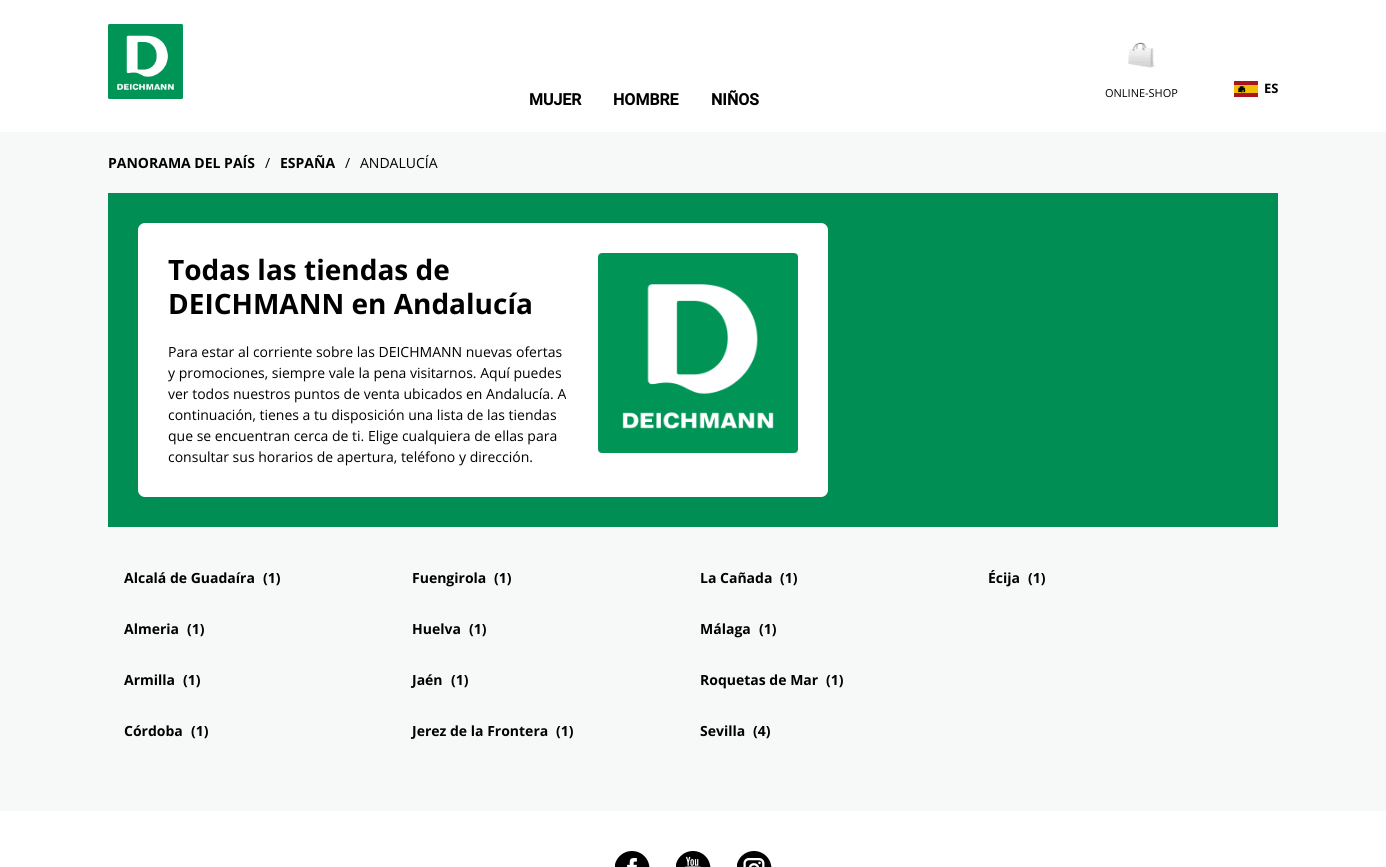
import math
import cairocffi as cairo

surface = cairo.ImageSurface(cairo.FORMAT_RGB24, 1386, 867)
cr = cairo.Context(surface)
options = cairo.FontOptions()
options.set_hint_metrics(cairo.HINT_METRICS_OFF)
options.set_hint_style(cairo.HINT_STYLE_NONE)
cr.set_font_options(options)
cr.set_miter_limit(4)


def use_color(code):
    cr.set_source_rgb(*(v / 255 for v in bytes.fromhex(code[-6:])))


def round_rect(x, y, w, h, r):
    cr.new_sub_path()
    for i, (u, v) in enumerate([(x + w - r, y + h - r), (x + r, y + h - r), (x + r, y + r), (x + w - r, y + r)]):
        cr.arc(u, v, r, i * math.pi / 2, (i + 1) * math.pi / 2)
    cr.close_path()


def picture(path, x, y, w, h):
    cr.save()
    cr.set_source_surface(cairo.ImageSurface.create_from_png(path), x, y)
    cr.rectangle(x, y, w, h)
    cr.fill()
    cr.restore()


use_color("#ffffff")
cr.paint()
picture("img1.png", 108, 24, 75, 75)
cr.select_font_face("Roboto", cairo.FONT_SLANT_NORMAL, cairo.FONT_WEIGHT_BOLD)
cr.set_font_size(16)
use_color("#000000")
cr.move_to(529, 105)
cr.show_text("MUJER")
cr.move_to(613, 105)
cr.show_text("HOMBRE")
cr.move_to(711, 105)
cr.show_text("NIÑOS")
picture("img2.png", 1128, 42, 27, 26)
cr.select_font_face("Open Sans")
cr.set_font_size(11)
cr.move_to(1105, 97)
cr.show_text("ONLINE-SHOP")
picture("img3.png", 1234, 81, 24, 16)
cr.select_font_face("Open Sans", cairo.FONT_SLANT_NORMAL, cairo.FONT_WEIGHT_BOLD)
cr.set_font_size(13)
cr.move_to(1264, 93)
cr.show_text("ES")
use_color("#f7f8f8")
cr.rectangle(0, 132, 1386, 679)
cr.fill()
cr.set_font_size(14)
use_color("#000000")
cr.move_to(108, 168)
cr.show_text("PANORAMA DEL PAÍS")
cr.select_font_face("Open Sans")
cr.move_to(265, 168)
cr.show_text("/")
cr.select_font_face("Open Sans", cairo.FONT_SLANT_NORMAL, cairo.FONT_WEIGHT_BOLD)
cr.move_to(280, 168)
cr.show_text("ESPAÑA")
cr.select_font_face("Open Sans")
cr.move_to(345, 168)
cr.show_text("/")
cr.move_to(360, 168)
cr.show_text("ANDALUCÍA")
use_color("#008e54")
cr.rectangle(108, 193, 1170, 334)
cr.fill()
use_color("#ffffff")
round_rect(138, 223, 690, 274, 7)
cr.fill()
cr.select_font_face("Open Sans", cairo.FONT_SLANT_NORMAL, cairo.FONT_WEIGHT_BOLD)
cr.set_font_size(28)
use_color("#000000")
cr.move_to(168, 280)
cr.show_text("Todas las tiendas de")
cr.move_to(168, 314)
cr.show_text("DEICHMANN en Andalucía")
cr.select_font_face("Open Sans")
cr.set_font_size(14)
cr.move_to(168, 357)
cr.show_text("Para estar al corriente sobre las DEICHMANN nuevas ofertas")
cr.move_to(168, 378)
cr.show_text("y promociones, siempre vale la pena visitarnos. Aquí puedes")
cr.move_to(168, 399)
cr.show_text("ver todos nuestros puntos de venta ubicados en Andalucía. A")
cr.move_to(168, 420)
cr.show_text("continuación, tienes a tu disposición una lista de las tiendas")
cr.move_to(168, 441)
cr.show_text("que se encuentran cerca de ti. Elige cualquiera de ellas para")
cr.move_to(168, 462)
cr.show_text("consultar sus horarios de apertura, teléfono y dirección.")
picture("img4.png", 598, 253, 200, 200)
cr.select_font_face("Open Sans", cairo.FONT_SLANT_NORMAL, cairo.FONT_WEIGHT_BOLD)
cr.move_to(124, 583)
cr.show_text("Alcalá de Guadaíra")
cr.move_to(263, 583)
cr.show_text("(1)")
cr.move_to(412, 583)
cr.show_text("Fuengirola")
cr.move_to(494, 583)
cr.show_text("(1)")
cr.move_to(700, 583)
cr.show_text("La Cañada")
cr.move_to(780, 583)
cr.show_text("(1)")
cr.move_to(988, 583)
cr.show_text("Écija")
cr.move_to(1028, 583)
cr.show_text("(1)")
cr.move_to(124, 634)
cr.show_text("Almeria")
cr.move_to(187, 634)
cr.show_text("(1)")
cr.move_to(412, 634)
cr.show_text("Huelva")
cr.move_to(469, 634)
cr.show_text("(1)")
cr.move_to(700, 634)
cr.show_text("Málaga")
cr.move_to(759, 634)
cr.show_text("(1)")
cr.move_to(124, 685)
cr.show_text("Armilla")
cr.move_to(183, 685)
cr.show_text("(1)")
cr.move_to(412, 685)
cr.show_text("Jaén")
cr.move_to(451, 685)
cr.show_text("(1)")
cr.move_to(700, 685)
cr.show_text("Roquetas de Mar")
cr.move_to(826, 685)
cr.show_text("(1)")
cr.move_to(124, 736)
cr.show_text("Córdoba")
cr.move_to(191, 736)
cr.show_text("(1)")
cr.move_to(412, 736)
cr.show_text("Jerez de la Frontera")
cr.move_to(556, 736)
cr.show_text("(1)")
cr.move_to(700, 736)
cr.show_text("Sevilla")
cr.move_to(753, 736)
cr.show_text("(4)")
picture("img5.png", 615, 851, 35, 16)
picture("img6.png", 676, 851, 35, 16)
picture("img7.png", 737, 851, 35, 16)
surface.write_to_png("result.png")
